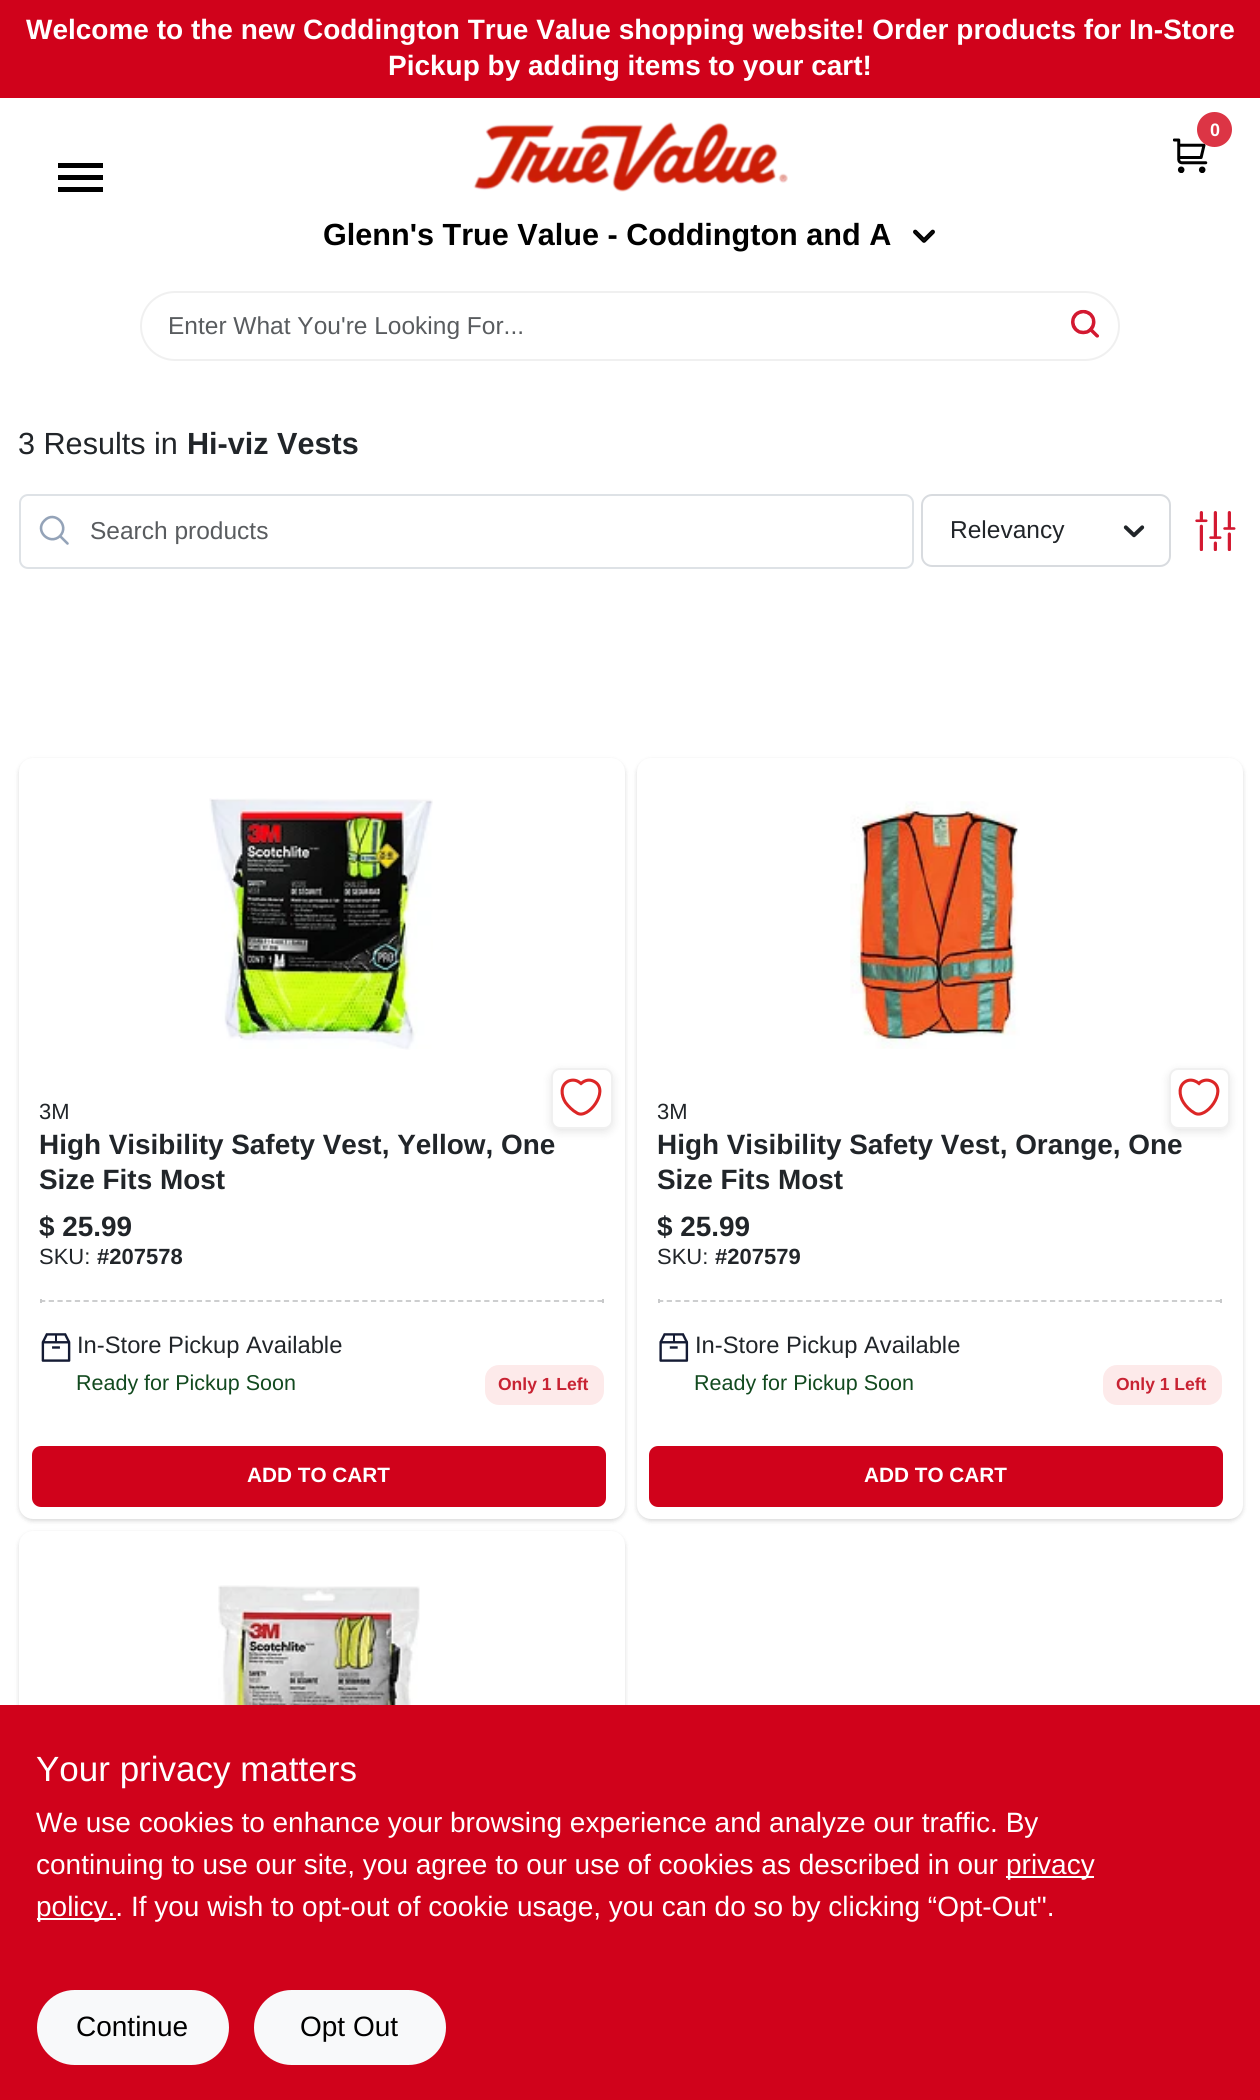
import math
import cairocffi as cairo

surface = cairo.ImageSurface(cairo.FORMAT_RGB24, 1260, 2100)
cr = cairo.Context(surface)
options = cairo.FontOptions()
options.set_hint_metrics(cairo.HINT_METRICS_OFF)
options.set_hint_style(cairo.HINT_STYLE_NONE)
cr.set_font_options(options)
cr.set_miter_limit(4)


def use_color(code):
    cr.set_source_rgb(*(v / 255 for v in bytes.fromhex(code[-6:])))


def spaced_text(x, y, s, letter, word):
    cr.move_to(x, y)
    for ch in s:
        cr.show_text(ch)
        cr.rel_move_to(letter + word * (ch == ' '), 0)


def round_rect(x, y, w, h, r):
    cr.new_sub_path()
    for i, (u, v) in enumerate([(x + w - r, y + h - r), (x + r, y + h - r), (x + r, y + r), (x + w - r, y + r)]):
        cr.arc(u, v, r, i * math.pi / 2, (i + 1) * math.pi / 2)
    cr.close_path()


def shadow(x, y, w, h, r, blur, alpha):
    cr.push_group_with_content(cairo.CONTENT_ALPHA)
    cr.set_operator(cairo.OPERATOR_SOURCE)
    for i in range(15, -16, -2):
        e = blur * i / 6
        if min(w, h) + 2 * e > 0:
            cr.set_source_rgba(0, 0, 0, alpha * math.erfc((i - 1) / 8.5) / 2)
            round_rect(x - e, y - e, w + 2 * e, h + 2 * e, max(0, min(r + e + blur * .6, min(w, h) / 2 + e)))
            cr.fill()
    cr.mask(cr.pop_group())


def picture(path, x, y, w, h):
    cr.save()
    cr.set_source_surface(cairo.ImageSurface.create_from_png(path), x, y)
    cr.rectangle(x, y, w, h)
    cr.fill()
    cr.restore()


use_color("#ffffff")
cr.paint()
use_color("#d0021b")
cr.rectangle(0, 0, 1260, 98)
cr.fill()
cr.select_font_face("Liberation Sans", cairo.FONT_SLANT_NORMAL, cairo.FONT_WEIGHT_BOLD)
cr.set_font_size(28)
use_color("#ffffff")
cr.move_to(26, 39)
cr.show_text("Welcome to the new Coddington True Value shopping website! Order products for In-Store")
cr.move_to(388, 75)
cr.show_text("Pickup by adding items to your cart!")
picture("img1.png", 1173, 138, 35, 35)
use_color("#dc3545")
cr.arc(1214.5, 129.5, 17.5, 0, 2 * math.pi)
cr.fill()
cr.set_font_size(18)
use_color("#ffffff")
spaced_text(1210, 136, "0", -2, 0)
use_color("#000000")
cr.rectangle(58, 163, 45, 5)
cr.fill()
cr.rectangle(58, 175, 45, 5)
cr.fill()
cr.rectangle(58, 187, 45, 5)
cr.fill()
picture("img2.png", 473, 122, 315, 70)
cr.set_font_size(30.6)
cr.move_to(323, 245)
cr.show_text("Glenn's True Value - Coddington and A")
picture("img3.png", 913, 229, 22, 14)
round_rect(141, 292, 978, 68, 34)
use_color("#f0f0f0")
cr.stroke()
cr.select_font_face("Liberation Sans")
cr.set_font_size(24.5)
use_color("#595c5f")
cr.move_to(168, 334)
cr.show_text("Enter What You're Looking For...")
picture("img4.png", 1071, 309, 28, 29)
cr.set_font_size(30.6)
use_color("#212529")
cr.move_to(18, 454)
cr.show_text("3 Results in")
cr.select_font_face("Liberation Sans", cairo.FONT_SLANT_NORMAL, cairo.FONT_WEIGHT_BOLD)
cr.move_to(187, 454)
cr.show_text("Hi-viz Vests")
cr.new_path()
cr.move_to(67.5, 543.5)
cr.line_to(60, 536)
cr.move_to(60, 536)
cr.curve_to(70, 525.5, 54.5, 510, 44.5, 520.5)
cr.curve_to(34, 530.5, 49.5, 546, 60, 536)
cr.close_path()
use_color("#94a3b8")
cr.set_line_width(2.6)
cr.set_line_cap(cairo.LINE_CAP_ROUND)
cr.set_line_join(cairo.LINE_JOIN_ROUND)
cr.stroke()
round_rect(20, 495, 893, 73, 8)
use_color("#dee2e6")
cr.set_line_width(2)
cr.set_line_cap(cairo.LINE_CAP_BUTT)
cr.set_line_join(cairo.LINE_JOIN_MITER)
cr.stroke()
cr.select_font_face("Liberation Sans")
cr.set_font_size(24.5)
use_color("#595c5f")
cr.move_to(90, 539)
cr.show_text("Search products")
round_rect(922, 495, 248, 71, 10)
use_color("#d8dbdf")
cr.stroke()
use_color("#212529")
cr.move_to(950, 538)
cr.show_text("Relevancy")
picture("img5.png", 1123, 525, 22, 13)
picture("img6.png", 1195, 511, 41, 40)
use_color("#000000")
shadow(19, 760, 606, 761, 14, 2, 0.06)
shadow(19, 760, 606, 761, 14, 2.5, 0.1)
use_color("#ffffff")
round_rect(19, 758, 606, 761, 14)
cr.fill()
picture("img7.png", 209, 798, 224, 252)
use_color("#000000")
shadow(551, 1071, 62, 61, 9, 4.5, 0.1)
use_color("#ffffff")
round_rect(552, 1069, 60, 59, 8)
cr.fill_preserve()
use_color("#f0f0f0")
cr.stroke()
cr.new_path()
cr.move_to(595, 1082)
cr.curve_to(591, 1079.5, 587, 1079.5, 583, 1082)
cr.line_to(581, 1083.5)
cr.line_to(579, 1082)
cr.curve_to(576, 1080, 572.5, 1079.5, 568.5, 1081)
cr.curve_to(560, 1085, 561, 1095.5, 565.5, 1102.5)
cr.curve_to(568.5, 1106.5, 572.5, 1110.5, 577, 1113)
cr.curve_to(588, 1120, 609.5, 1091, 595, 1082)
cr.close_path()
use_color("#dc2626")
cr.set_line_width(3.1)
cr.set_line_cap(cairo.LINE_CAP_ROUND)
cr.stroke()
cr.set_font_size(22)
use_color("#212529")
cr.move_to(39, 1119)
cr.show_text("3M")
cr.select_font_face("Liberation Sans", cairo.FONT_SLANT_NORMAL, cairo.FONT_WEIGHT_BOLD)
cr.set_font_size(27.9)
cr.move_to(39, 1154)
cr.show_text("High Visibility Safety Vest, Yellow, One")
cr.move_to(39, 1189)
cr.show_text("Size Fits Most")
cr.move_to(39, 1236)
cr.show_text("$ 25.99")
cr.select_font_face("Liberation Sans")
cr.set_font_size(22)
cr.move_to(39, 1264)
cr.show_text("SKU:")
cr.select_font_face("Liberation Sans", cairo.FONT_SLANT_NORMAL, cairo.FONT_WEIGHT_BOLD)
cr.move_to(97, 1264)
cr.show_text("#207578")
use_color("#c8c9ca")
cr.rectangle(602, 1299, 2, 4)
cr.fill()
cr.new_path()
cr.move_to(40, 1301)
cr.line_to(604, 1301)
cr.set_line_width(1.8)
cr.set_line_cap(cairo.LINE_CAP_BUTT)
cr.set_dash([5.25, 3.46])
cr.stroke()
cr.rectangle(40, 1299, 2, 4)
cr.fill()
picture("img8.png", 41, 1333, 30, 29)
cr.select_font_face("Liberation Sans")
cr.set_font_size(23.75)
use_color("#212529")
cr.move_to(77, 1353)
cr.show_text("In-Store Pickup Available")
cr.set_font_size(21.5)
use_color("#124a1f")
cr.move_to(76, 1390)
cr.show_text("Ready for Pickup Soon")
use_color("#fdeaea")
round_rect(485, 1365, 119, 40, 14)
cr.fill()
cr.select_font_face("Liberation Sans", cairo.FONT_SLANT_NORMAL, cairo.FONT_WEIGHT_BOLD)
cr.set_font_size(17.5)
use_color("#c82333")
cr.move_to(498, 1390)
cr.show_text("Only 1 Left")
use_color("#d0021b")
round_rect(33, 1447, 572, 59, 8)
cr.fill_preserve()
cr.set_line_width(2)
cr.set_dash([])
cr.stroke()
cr.set_font_size(20.75)
use_color("#ffffff")
cr.move_to(247, 1482)
cr.show_text("ADD TO CART")
use_color("#000000")
shadow(637, 760, 606, 761, 14, 2, 0.06)
shadow(637, 760, 606, 761, 14, 2.5, 0.1)
use_color("#ffffff")
round_rect(637, 758, 606, 761, 14)
cr.fill()
picture("img9.png", 850, 801, 170, 248)
use_color("#000000")
shadow(1169, 1071, 61, 61, 9, 4.5, 0.1)
use_color("#ffffff")
round_rect(1170, 1069, 59, 59, 8)
cr.fill_preserve()
use_color("#f0f0f0")
cr.stroke()
cr.new_path()
cr.move_to(1213, 1082)
cr.curve_to(1209, 1079.5, 1204.5, 1079.5, 1200.5, 1082)
cr.line_to(1199, 1083.5)
cr.line_to(1197, 1082)
cr.curve_to(1193.5, 1080, 1190, 1079.5, 1186.5, 1081)
cr.curve_to(1178, 1085, 1179, 1095.5, 1183.5, 1102.5)
cr.curve_to(1186, 1106.5, 1190, 1110.5, 1194.5, 1113)
cr.curve_to(1206, 1120, 1227.5, 1091, 1213, 1082)
cr.close_path()
use_color("#dc2626")
cr.set_line_width(3.1)
cr.set_line_cap(cairo.LINE_CAP_ROUND)
cr.stroke()
cr.select_font_face("Liberation Sans")
cr.set_font_size(22)
use_color("#212529")
cr.move_to(657, 1119)
cr.show_text("3M")
cr.select_font_face("Liberation Sans", cairo.FONT_SLANT_NORMAL, cairo.FONT_WEIGHT_BOLD)
cr.set_font_size(27.9)
cr.move_to(657, 1154)
cr.show_text("High Visibility Safety Vest, Orange, One")
cr.move_to(657, 1189)
cr.show_text("Size Fits Most")
cr.move_to(657, 1236)
cr.show_text("$ 25.99")
cr.select_font_face("Liberation Sans")
cr.set_font_size(22)
cr.move_to(657, 1264)
cr.show_text("SKU:")
cr.select_font_face("Liberation Sans", cairo.FONT_SLANT_NORMAL, cairo.FONT_WEIGHT_BOLD)
cr.move_to(715, 1264)
cr.show_text("#207579")
use_color("#c8c9ca")
cr.rectangle(1220, 1299, 2, 4)
cr.fill()
cr.new_path()
cr.move_to(658, 1301)
cr.line_to(1221.5, 1301)
cr.set_line_width(1.8)
cr.set_line_cap(cairo.LINE_CAP_BUTT)
cr.set_dash([5.25, 3.46])
cr.stroke()
cr.rectangle(658, 1299, 2, 4)
cr.fill()
picture("img10.png", 659, 1333, 30, 29)
cr.select_font_face("Liberation Sans")
cr.set_font_size(23.75)
use_color("#212529")
cr.move_to(695, 1353)
cr.show_text("In-Store Pickup Available")
cr.set_font_size(21.5)
use_color("#124a1f")
cr.move_to(694, 1390)
cr.show_text("Ready for Pickup Soon")
use_color("#fdeaea")
round_rect(1103, 1365, 119, 40, 14)
cr.fill()
cr.select_font_face("Liberation Sans", cairo.FONT_SLANT_NORMAL, cairo.FONT_WEIGHT_BOLD)
cr.set_font_size(17.5)
use_color("#c82333")
cr.move_to(1116, 1390)
cr.show_text("Only 1 Left")
use_color("#d0021b")
round_rect(650, 1447, 572, 59, 8)
cr.fill_preserve()
cr.set_line_width(2)
cr.set_dash([])
cr.stroke()
cr.set_font_size(20.75)
use_color("#ffffff")
cr.move_to(864, 1482)
cr.show_text("ADD TO CART")
use_color("#000000")
shadow(19, 1533, 606, 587, 14, 2, 0.06)
shadow(19, 1533, 606, 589, 14, 2.5, 0.1)
use_color("#ffffff")
round_rect(19, 1531, 606, 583, 14)
cr.fill()
picture("img11.png", 218, 1585, 202, 120)
use_color("#d0021b")
cr.rectangle(0, 1705, 1260, 395)
cr.fill()
cr.select_font_face("Liberation Sans")
cr.set_font_size(35)
use_color("#ffffff")
cr.move_to(36, 1781)
cr.show_text("Your privacy matters")
cr.set_font_size(28)
cr.move_to(36, 1832)
cr.show_text("We use cookies to enhance your browsing experience and analyze our traffic. By")
cr.move_to(36, 1874)
cr.show_text("continuing to use our site, you agree to our use of cookies as described in our")
cr.rectangle(1006, 1876, 88, 2)
cr.fill()
cr.move_to(1006, 1874)
cr.show_text("privacy")
cr.rectangle(37, 1918, 79, 2)
cr.fill()
cr.move_to(36, 1916)
cr.show_text("policy.. If you wish to opt-out of cookie usage, you can do so by clicking “Opt-Out\".")
use_color("#f8f9fa")
round_rect(38, 1991, 190, 73, 36.5)
cr.fill_preserve()
cr.stroke()
use_color("#000000")
cr.move_to(76, 2036)
cr.show_text("Continue")
use_color("#f8f9fa")
round_rect(255, 1991, 190, 73, 36.5)
cr.fill_preserve()
cr.stroke()
use_color("#000000")
cr.move_to(300, 2036)
cr.show_text("Opt Out")
surface.write_to_png("result.png")
